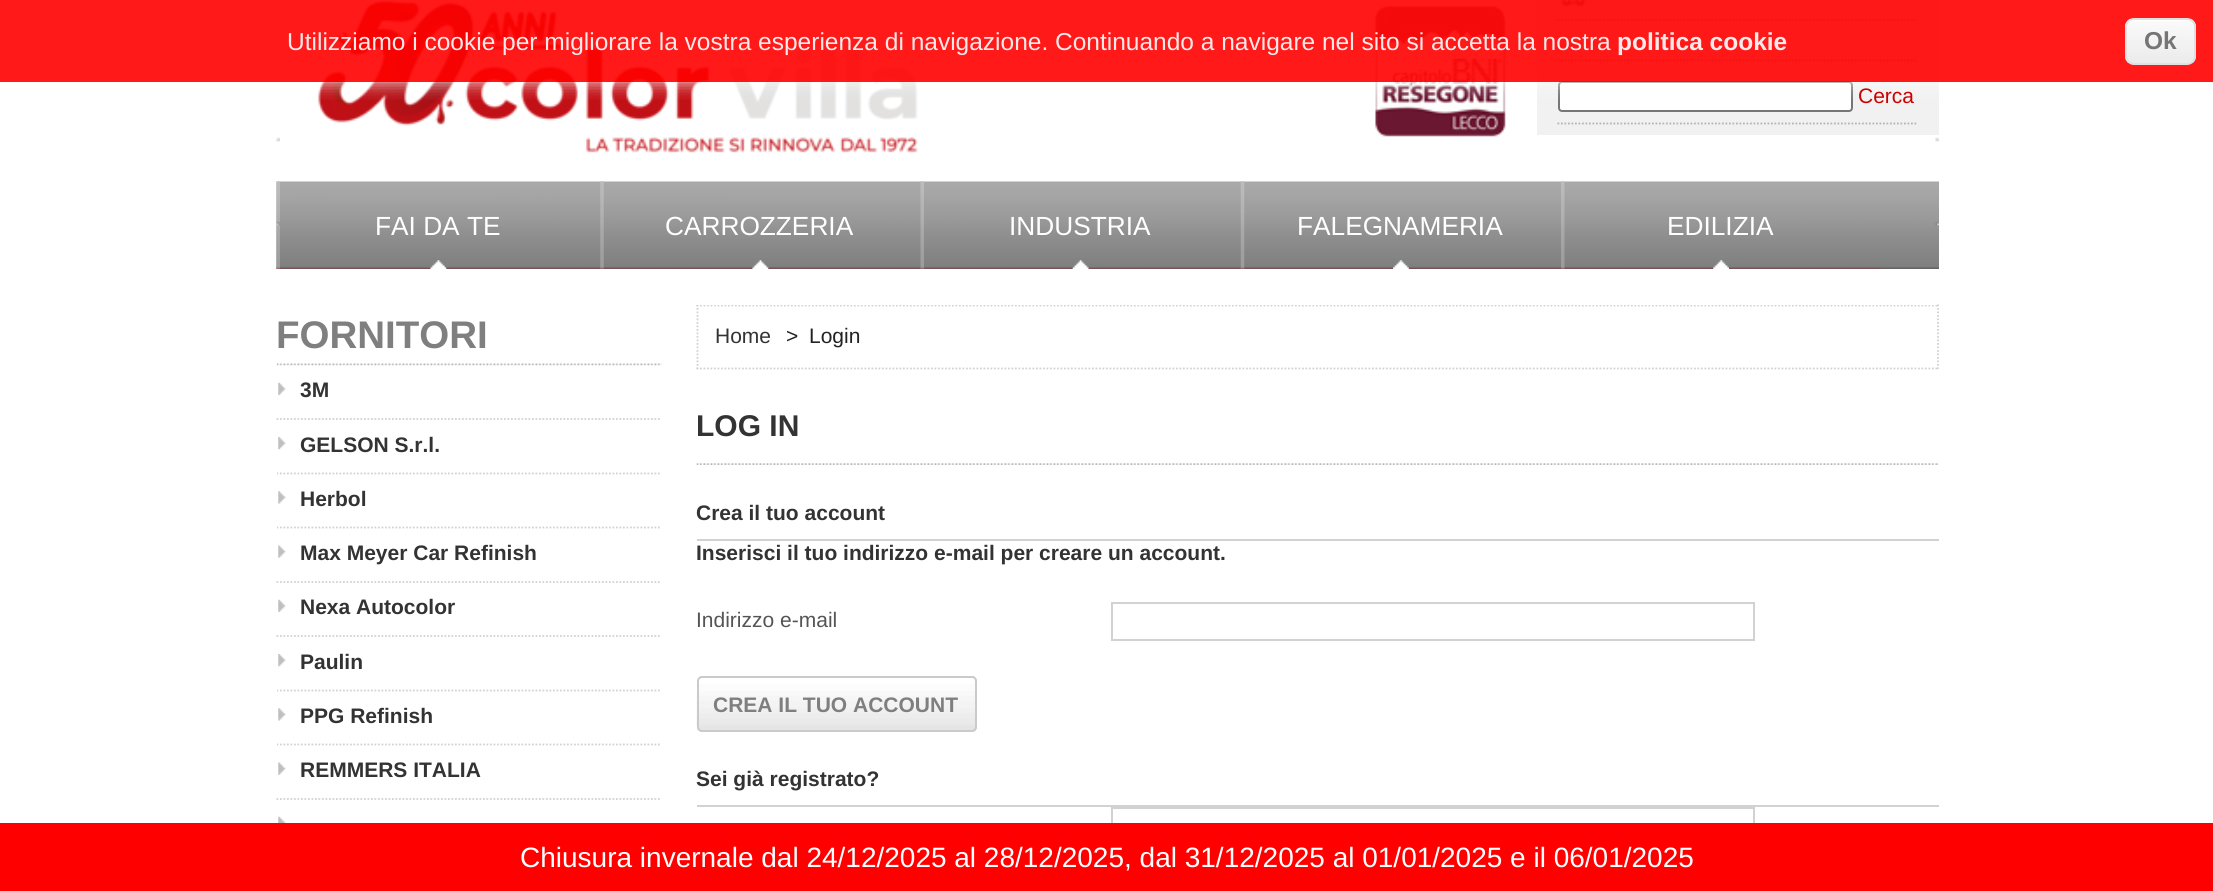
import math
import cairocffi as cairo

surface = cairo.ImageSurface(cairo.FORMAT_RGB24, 2213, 891)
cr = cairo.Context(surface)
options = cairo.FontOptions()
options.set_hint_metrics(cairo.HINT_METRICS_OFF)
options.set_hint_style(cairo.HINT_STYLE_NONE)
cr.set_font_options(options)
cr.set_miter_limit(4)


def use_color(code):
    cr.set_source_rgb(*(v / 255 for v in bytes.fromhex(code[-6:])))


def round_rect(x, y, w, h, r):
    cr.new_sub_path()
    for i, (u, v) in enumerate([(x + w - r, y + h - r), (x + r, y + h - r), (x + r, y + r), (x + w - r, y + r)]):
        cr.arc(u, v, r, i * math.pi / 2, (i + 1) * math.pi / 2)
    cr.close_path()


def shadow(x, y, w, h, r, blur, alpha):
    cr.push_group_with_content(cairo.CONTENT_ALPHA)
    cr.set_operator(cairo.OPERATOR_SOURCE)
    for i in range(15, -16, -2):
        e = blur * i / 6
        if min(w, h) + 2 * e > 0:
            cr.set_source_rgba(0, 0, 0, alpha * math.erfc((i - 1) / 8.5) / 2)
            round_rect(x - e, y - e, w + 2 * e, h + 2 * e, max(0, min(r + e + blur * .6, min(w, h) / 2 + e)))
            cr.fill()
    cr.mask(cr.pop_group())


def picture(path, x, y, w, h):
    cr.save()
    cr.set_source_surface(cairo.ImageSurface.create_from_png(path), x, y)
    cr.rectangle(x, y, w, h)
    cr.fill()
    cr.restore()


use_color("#ffffff")
cr.paint()
picture("img1.png", 1375, 6, 131, 131)
picture("img2.png", 318, 0, 600, 153)
use_color("#f1f1f1")
cr.rectangle(1537, 0, 402, 135)
cr.fill()
picture("img3.png", 1536, 0, 1, 68)
picture("img4.png", 1561, 0, 25, 7)
cr.new_path()
cr.move_to(1557.5, 20)
cr.line_to(1918, 20)
use_color("#b4b2b2")
cr.set_line_width(1.8)
cr.set_dash([1.75, 1.75])
cr.stroke()
cr.new_path()
cr.move_to(1557.5, 60.5)
cr.line_to(1918, 60.5)
cr.stroke()
use_color("#ffffff")
round_rect(1559, 82, 293, 29, 3)
cr.fill_preserve()
use_color("#767676")
cr.set_line_width(2)
cr.set_dash([])
cr.stroke()
cr.save()
cr.rectangle(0, 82, 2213, 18)
cr.clip()
use_color("#ffffff")
shadow(0, 0, 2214, 82, 0, 9, 0.9)
cr.restore()
cr.set_source_rgba(1, 0, 0, 0.9)
cr.rectangle(0, 0, 2213, 82)
cr.fill()
cr.select_font_face("Liberation Sans")
cr.set_font_size(24.5)
use_color("#ffe8e8")
cr.move_to(287, 50)
cr.show_text("Utilizziamo i cookie per migliorare la vostra esperienza di navigazione. Continuando a navigare nel sito si accetta la nostra")
cr.select_font_face("Liberation Sans", cairo.FONT_SLANT_NORMAL, cairo.FONT_WEIGHT_BOLD)
cr.move_to(1617, 50)
cr.show_text("politica cookie")
cr.save()
round_rect(2125, 18, 71, 47, 9)
cr.clip()
gradient = cairo.LinearGradient(2126, 19, 2126, 63)
gradient.add_color_stop_rgba(0.05, 0.98, 0.98, 0.98, 1)
gradient.add_color_stop_rgba(1, 0.922, 0.922, 0.922, 1)
cr.set_source(gradient)
cr.rectangle(2125, 19, 71, 44)
cr.fill()
cr.restore()
use_color("#ffffff")
cr.new_path()
cr.move_to(2133, 21)
cr.line_to(2179, 21)
cr.curve_to(2184, 21, 2193, 19, 2194, 27)
cr.line_to(2194, 60)
cr.curve_to(2195, 59, 2195, 57, 2195, 56)
cr.line_to(2195, 26)
cr.curve_to(2195, 22, 2192, 19, 2188, 19)
cr.line_to(2133, 19)
cr.curve_to(2129, 19, 2126, 22, 2126, 26)
cr.line_to(2126, 28)
cr.curve_to(2126, 24, 2129, 21, 2133, 21)
cr.close_path()
cr.fill()
round_rect(2126, 19, 69, 45, 8)
use_color("#e0e0e0")
cr.stroke()
use_color("#757575")
cr.move_to(2144, 49)
cr.show_text("Ok")
cr.new_path()
cr.move_to(1557.5, 123.5)
cr.line_to(1918, 123.5)
use_color("#b4b2b2")
cr.set_line_width(1.8)
cr.set_dash([1.75, 1.75])
cr.stroke()
cr.select_font_face("Liberation Sans")
cr.set_font_size(21)
use_color("#cc0000")
cr.move_to(1858, 103)
cr.show_text("Cerca")
picture("img5.png", 276, 137, 4, 5)
picture("img6.png", 1935, 137, 4, 5)
picture("img8.png", 276, 181, 1663, 88)
picture("img9.png", 276, 181, 4, 88)
picture("img7.png", 276, 221, 4, 5)
picture("img10.png", 276, 268, 325, 1)
cr.set_font_size(26.25)
use_color("#ffffff")
cr.move_to(375, 235)
cr.show_text("FAI DA TE")
picture("img11.png", 430, 260, 17, 9)
picture("img12.png", 600, 181, 4, 88)
picture("img13.png", 600, 268, 321, 1)
cr.move_to(665, 235)
cr.show_text("CARROZZERIA")
picture("img14.png", 752, 260, 17, 9)
picture("img15.png", 920, 181, 4, 88)
picture("img16.png", 920, 268, 321, 1)
cr.move_to(1009, 235)
cr.show_text("INDUSTRIA")
picture("img17.png", 1072, 260, 17, 9)
picture("img18.png", 1240, 181, 5, 88)
picture("img19.png", 1240, 268, 321, 1)
cr.move_to(1297, 235)
cr.show_text("FALEGNAMERIA")
picture("img20.png", 1393, 260, 16, 9)
picture("img21.png", 1561, 181, 4, 88)
picture("img22.png", 1561, 268, 321, 1)
cr.move_to(1667, 235)
cr.show_text("EDILIZIA")
picture("img23.png", 1713, 260, 16, 9)
picture("img24.png", 1935, 222, 4, 4)
picture("img25.png", 276, 363, 386, 3)
cr.select_font_face("Liberation Sans", cairo.FONT_SLANT_NORMAL, cairo.FONT_WEIGHT_BOLD)
cr.set_font_size(38.5)
use_color("#7f7f7f")
cr.move_to(276, 348)
cr.show_text("FORNITORI")
picture("img26.png", 278, 382, 8, 13)
cr.set_font_size(21)
use_color("#333333")
cr.move_to(300, 397)
cr.show_text("3M")
picture("img27.png", 278, 437, 8, 13)
cr.new_path()
cr.move_to(276.5, 419)
cr.line_to(661.5, 419)
use_color("#d3d1d1")
cr.stroke()
use_color("#333333")
cr.move_to(300, 452)
cr.show_text("GELSON S.r.l.")
picture("img28.png", 278, 491, 8, 13)
cr.save()
cr.rectangle(277, 305, 1662, 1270)
cr.clip()
cr.new_path()
cr.move_to(276.5, 473.5)
cr.line_to(661.5, 473.5)
use_color("#d3d1d1")
cr.stroke()
cr.restore()
cr.move_to(300, 506)
cr.show_text("Herbol")
picture("img29.png", 278, 545, 8, 13)
cr.save()
cr.rectangle(277, 305, 1662, 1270)
cr.clip()
cr.new_path()
cr.move_to(276.5, 527.5)
cr.line_to(661.5, 527.5)
use_color("#d3d1d1")
cr.stroke()
cr.restore()
cr.move_to(300, 560)
cr.show_text("Max Meyer Car Refinish")
picture("img26.png", 278, 599, 8, 13)
cr.new_path()
cr.move_to(276.5, 582)
cr.line_to(661.5, 582)
use_color("#d3d1d1")
cr.stroke()
use_color("#333333")
cr.move_to(300, 614)
cr.show_text("Nexa Autocolor")
picture("img27.png", 278, 654, 8, 13)
cr.new_path()
cr.move_to(276.5, 636)
cr.line_to(661.5, 636)
use_color("#d3d1d1")
cr.stroke()
use_color("#333333")
cr.move_to(300, 669)
cr.show_text("Paulin")
picture("img28.png", 278, 708, 8, 13)
cr.save()
cr.rectangle(277, 305, 1662, 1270)
cr.clip()
cr.new_path()
cr.move_to(276.5, 690.5)
cr.line_to(661.5, 690.5)
use_color("#d3d1d1")
cr.stroke()
cr.restore()
cr.move_to(300, 723)
cr.show_text("PPG Refinish")
picture("img29.png", 278, 762, 8, 13)
cr.save()
cr.rectangle(277, 305, 1662, 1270)
cr.clip()
cr.new_path()
cr.move_to(276.5, 744.5)
cr.line_to(661.5, 744.5)
use_color("#d3d1d1")
cr.stroke()
cr.restore()
cr.move_to(300, 777)
cr.show_text("REMMERS ITALIA")
picture("img30.png", 278, 816, 8, 7)
cr.new_path()
cr.move_to(276.5, 799)
cr.line_to(661.5, 799)
use_color("#d3d1d1")
cr.stroke()
cr.save()
cr.rectangle(277, 305, 1662, 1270)
cr.clip()
cr.new_path()
cr.move_to(696.5, 305.5)
cr.line_to(1939, 305.5)
cr.stroke()
cr.restore()
cr.new_path()
cr.move_to(1938, 304.5)
cr.line_to(1938, 369)
cr.stroke()
cr.new_path()
cr.move_to(696.5, 368.5)
cr.line_to(1939, 368.5)
cr.stroke()
cr.save()
cr.rectangle(277, 305, 1662, 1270)
cr.clip()
cr.new_path()
cr.move_to(697.5, 304.5)
cr.line_to(697.5, 369)
cr.stroke()
cr.restore()
cr.select_font_face("Liberation Sans")
use_color("#333333")
cr.move_to(715, 343)
cr.show_text("Home")
use_color("#222222")
cr.move_to(786, 343)
cr.show_text(">")
cr.move_to(809, 343)
cr.show_text("Login")
picture("img31.png", 696, 463, 1243, 2)
cr.select_font_face("Liberation Sans", cairo.FONT_SLANT_NORMAL, cairo.FONT_WEIGHT_BOLD)
cr.set_font_size(30)
use_color("#333333")
cr.move_to(696, 436)
cr.show_text("LOG IN")
use_color("#d3d1d1")
cr.rectangle(697, 539, 1242, 2)
cr.fill()
cr.set_font_size(21)
use_color("#333333")
cr.move_to(696, 520)
cr.show_text("Crea il tuo account")
cr.move_to(696, 560)
cr.show_text("Inserisci il tuo indirizzo e-mail per creare un account.")
cr.select_font_face("Liberation Sans")
use_color("#555555")
cr.move_to(696, 627)
cr.show_text("Indirizzo e-mail")
cr.rectangle(1112, 603, 642, 37)
use_color("#d3d1d1")
cr.set_line_width(2)
cr.set_dash([])
cr.stroke()
use_color("#e5e5e5")
round_rect(697, 676, 280, 56, 5)
cr.fill()
picture("img32.png", 696, 676, 281, 50)
round_rect(698, 677, 278, 54, 4)
use_color("#cbc9c9")
cr.stroke()
cr.select_font_face("Liberation Sans", cairo.FONT_SLANT_NORMAL, cairo.FONT_WEIGHT_BOLD)
use_color("#7f7f7f")
cr.move_to(713, 712)
cr.show_text("CREA IL TUO ACCOUNT")
use_color("#d3d1d1")
cr.rectangle(697, 805, 1242, 2)
cr.fill()
use_color("#333333")
cr.move_to(696, 786)
cr.show_text("Sei già registrato?")
cr.rectangle(1112, 808, 642, 36)
use_color("#d3d1d1")
cr.stroke()
use_color("#ff0000")
cr.rectangle(0, 823, 2213, 68)
cr.fill()
cr.select_font_face("Liberation Sans")
cr.set_font_size(28)
use_color("#ffffff")
cr.move_to(520, 867)
cr.show_text("Chiusura invernale dal 24/12/2025 al 28/12/2025, dal 31/12/2025 al 01/01/2025 e il 06/01/2025")
surface.write_to_png("result.png")
